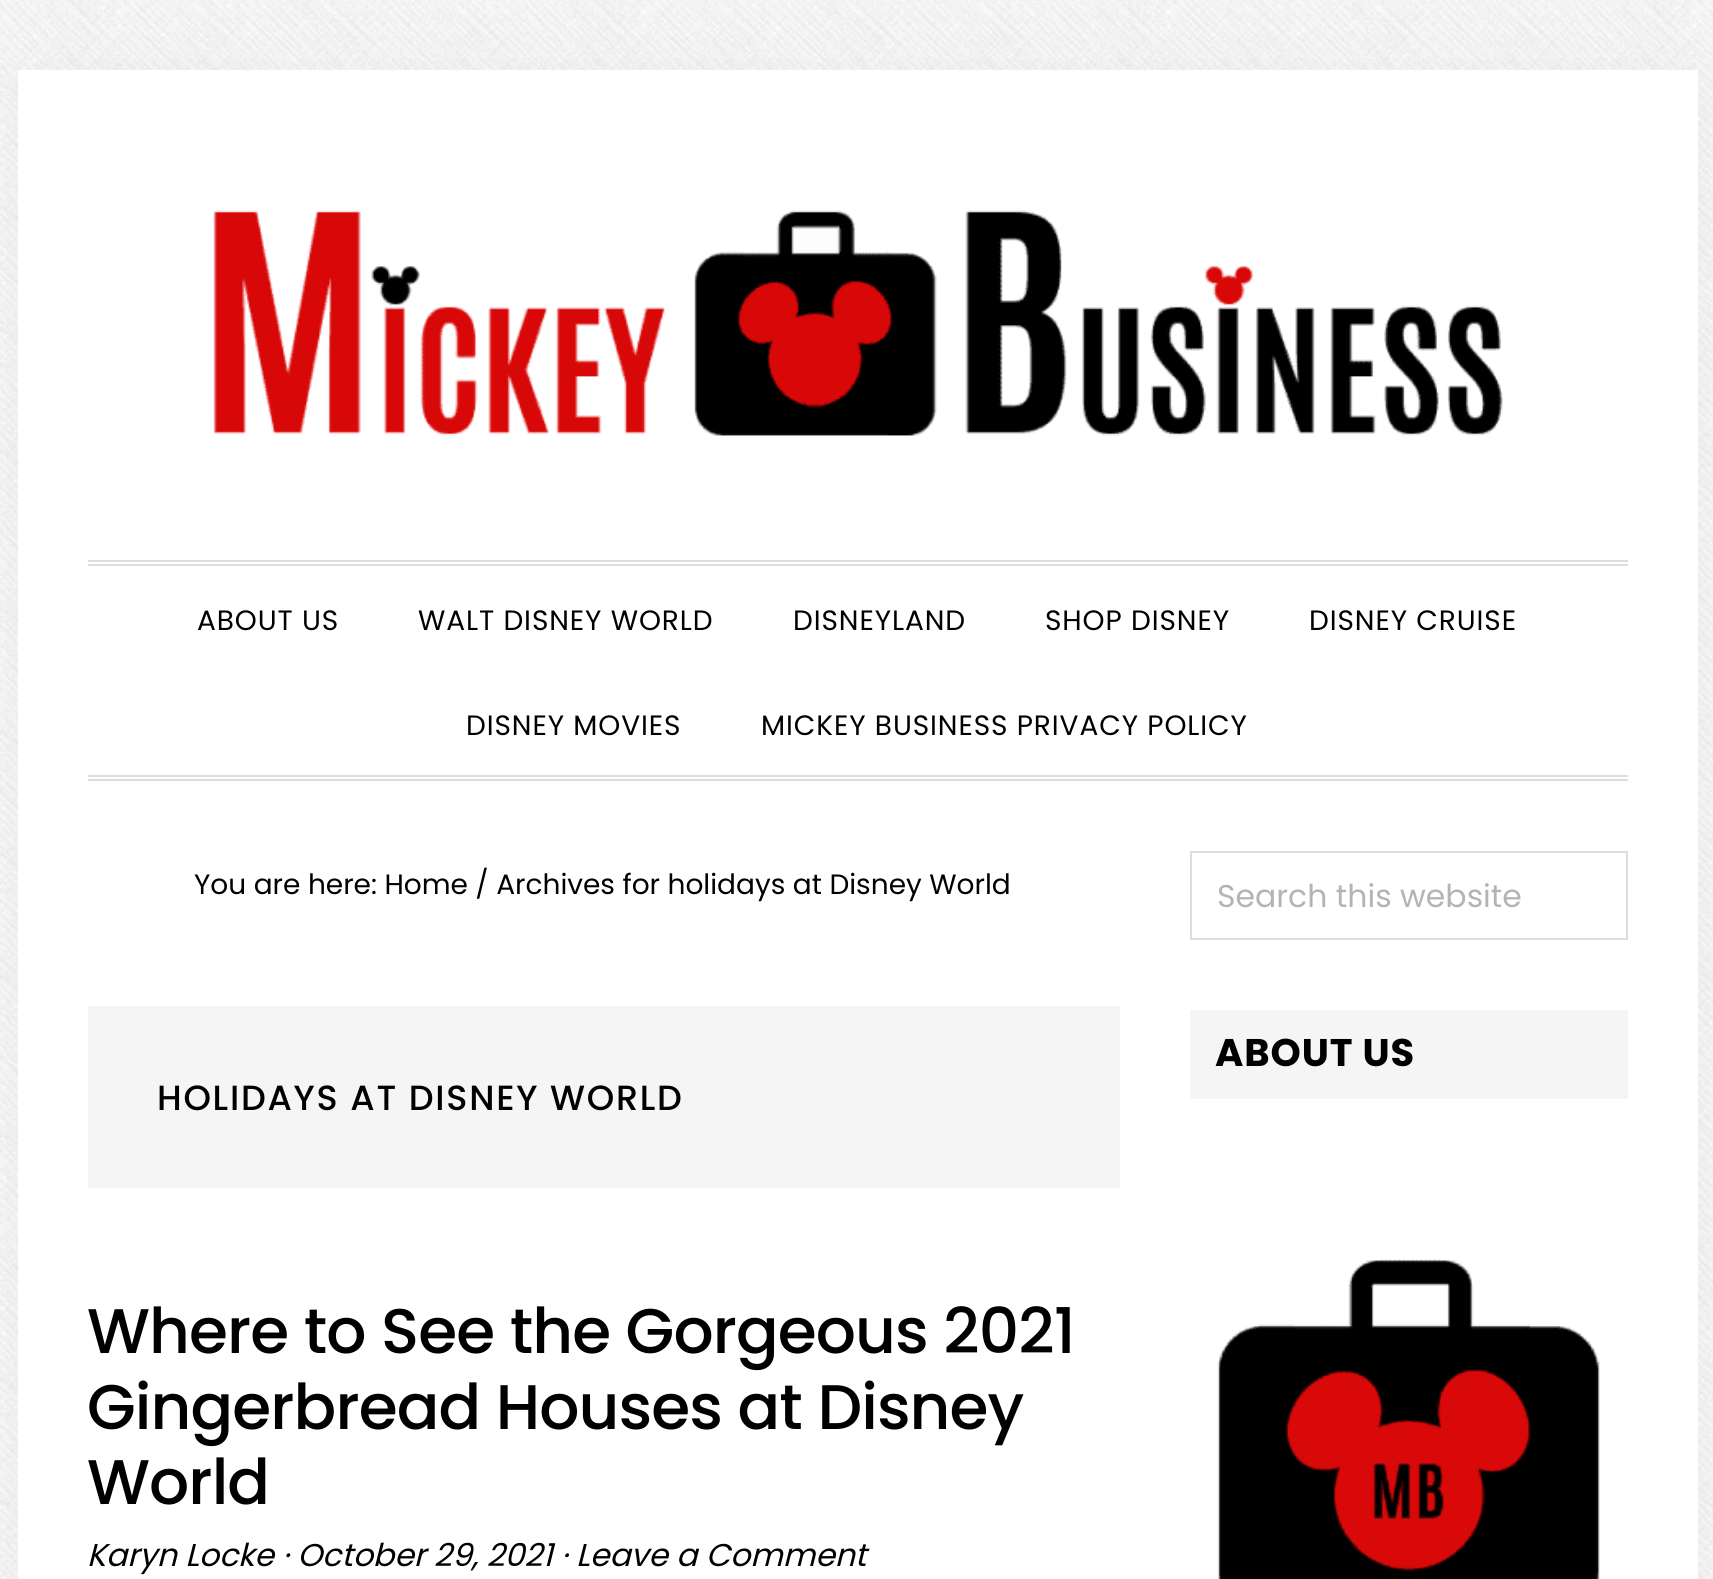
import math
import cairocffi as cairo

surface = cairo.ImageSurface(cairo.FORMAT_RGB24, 1713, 1579)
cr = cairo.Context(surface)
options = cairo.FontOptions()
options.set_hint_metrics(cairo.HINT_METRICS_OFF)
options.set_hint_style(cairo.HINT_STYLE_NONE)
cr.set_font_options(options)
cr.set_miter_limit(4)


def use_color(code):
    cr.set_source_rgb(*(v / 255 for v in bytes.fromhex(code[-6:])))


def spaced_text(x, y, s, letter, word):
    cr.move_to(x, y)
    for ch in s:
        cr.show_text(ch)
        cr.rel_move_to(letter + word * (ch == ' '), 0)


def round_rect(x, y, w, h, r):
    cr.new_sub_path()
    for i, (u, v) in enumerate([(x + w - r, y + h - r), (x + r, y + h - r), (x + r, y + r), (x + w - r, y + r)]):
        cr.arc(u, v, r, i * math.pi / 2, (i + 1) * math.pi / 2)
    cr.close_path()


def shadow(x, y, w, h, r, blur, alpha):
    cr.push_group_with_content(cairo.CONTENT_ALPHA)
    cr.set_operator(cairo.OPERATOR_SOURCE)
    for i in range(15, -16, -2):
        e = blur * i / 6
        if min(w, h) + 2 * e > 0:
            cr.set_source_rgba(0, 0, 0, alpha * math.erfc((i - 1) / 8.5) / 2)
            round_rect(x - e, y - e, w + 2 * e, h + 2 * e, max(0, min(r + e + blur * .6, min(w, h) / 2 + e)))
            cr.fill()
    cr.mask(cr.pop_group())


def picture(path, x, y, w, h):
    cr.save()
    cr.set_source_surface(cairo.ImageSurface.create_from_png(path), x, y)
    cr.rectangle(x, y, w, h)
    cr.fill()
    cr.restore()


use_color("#ffffff")
cr.paint()
picture("img1.png", 0, 0, 1713, 1579)
use_color("#000000")
shadow(18, 70, 1680, 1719, 0, 70, 0.05)
use_color("#ffffff")
cr.rectangle(18, 70, 1680, 1509)
cr.fill()
picture("img2.png", 213, 210, 1290, 226)
use_color("#dddddd")
cr.rectangle(88, 560, 1540, 2)
cr.fill()
cr.rectangle(88, 564, 1540, 2)
cr.fill()
cr.rectangle(88, 775, 1540, 2)
cr.fill()
cr.rectangle(88, 779, 1540, 2)
cr.fill()
cr.select_font_face("Poppins")
cr.set_font_size(28)
use_color("#000000")
spaced_text(197, 630, "ABOUT US", 0.9, 0)
spaced_text(418, 630, "WALT DISNEY WORLD", 0.9, 0)
spaced_text(793, 630, "DISNEYLAND", 0.9, 0)
spaced_text(1045, 630, "SHOP DISNEY", 0.9, 0)
spaced_text(1309, 630, "DISNEY CRUISE", 0.9, 0)
spaced_text(466, 735, "DISNEY MOVIES", 0.9, 0)
spaced_text(761, 735, "MICKEY BUSINESS PRIVACY POLICY", 0.9, 0)
cr.move_to(194, 894)
cr.show_text("You are here: Home / Archives for holidays at Disney World")
use_color("#f5f5f5")
cr.rectangle(88, 1006, 1032, 182)
cr.fill()
cr.select_font_face("Poppins Medium")
cr.set_font_size(35)
use_color("#000000")
spaced_text(157, 1110, "HOLIDAYS AT DISNEY WORLD", 1.75, 0)
cr.set_font_size(63)
spaced_text(87, 1353, "Where to See the Gorgeous 2021", -0.9, 0)
spaced_text(87, 1429, "Gingerbread Houses at Disney", -0.9, 0)
spaced_text(87, 1504, "World", -0.9, 0)
cr.select_font_face("Poppins", cairo.FONT_SLANT_ITALIC)
cr.set_font_size(31.5)
cr.move_to(87, 1566)
cr.show_text("Karyn Locke · October 29, 2021 · Leave a Comment")
cr.rectangle(1191, 852, 436, 87)
use_color("#dddddd")
cr.stroke()
cr.select_font_face("Poppins")
use_color("#b4b4b4")
cr.move_to(1217, 907)
cr.show_text("Search this website")
use_color("#f5f5f5")
cr.rectangle(1190, 1010, 438, 89)
cr.fill()
cr.select_font_face("Poppins", cairo.FONT_SLANT_NORMAL, cairo.FONT_WEIGHT_BOLD)
cr.set_font_size(38.5)
use_color("#000000")
spaced_text(1215, 1066, "ABOUT US", 0.9, 0)
picture("img3.png", 1217, 1259, 383, 320)
surface.write_to_png("result.png")
